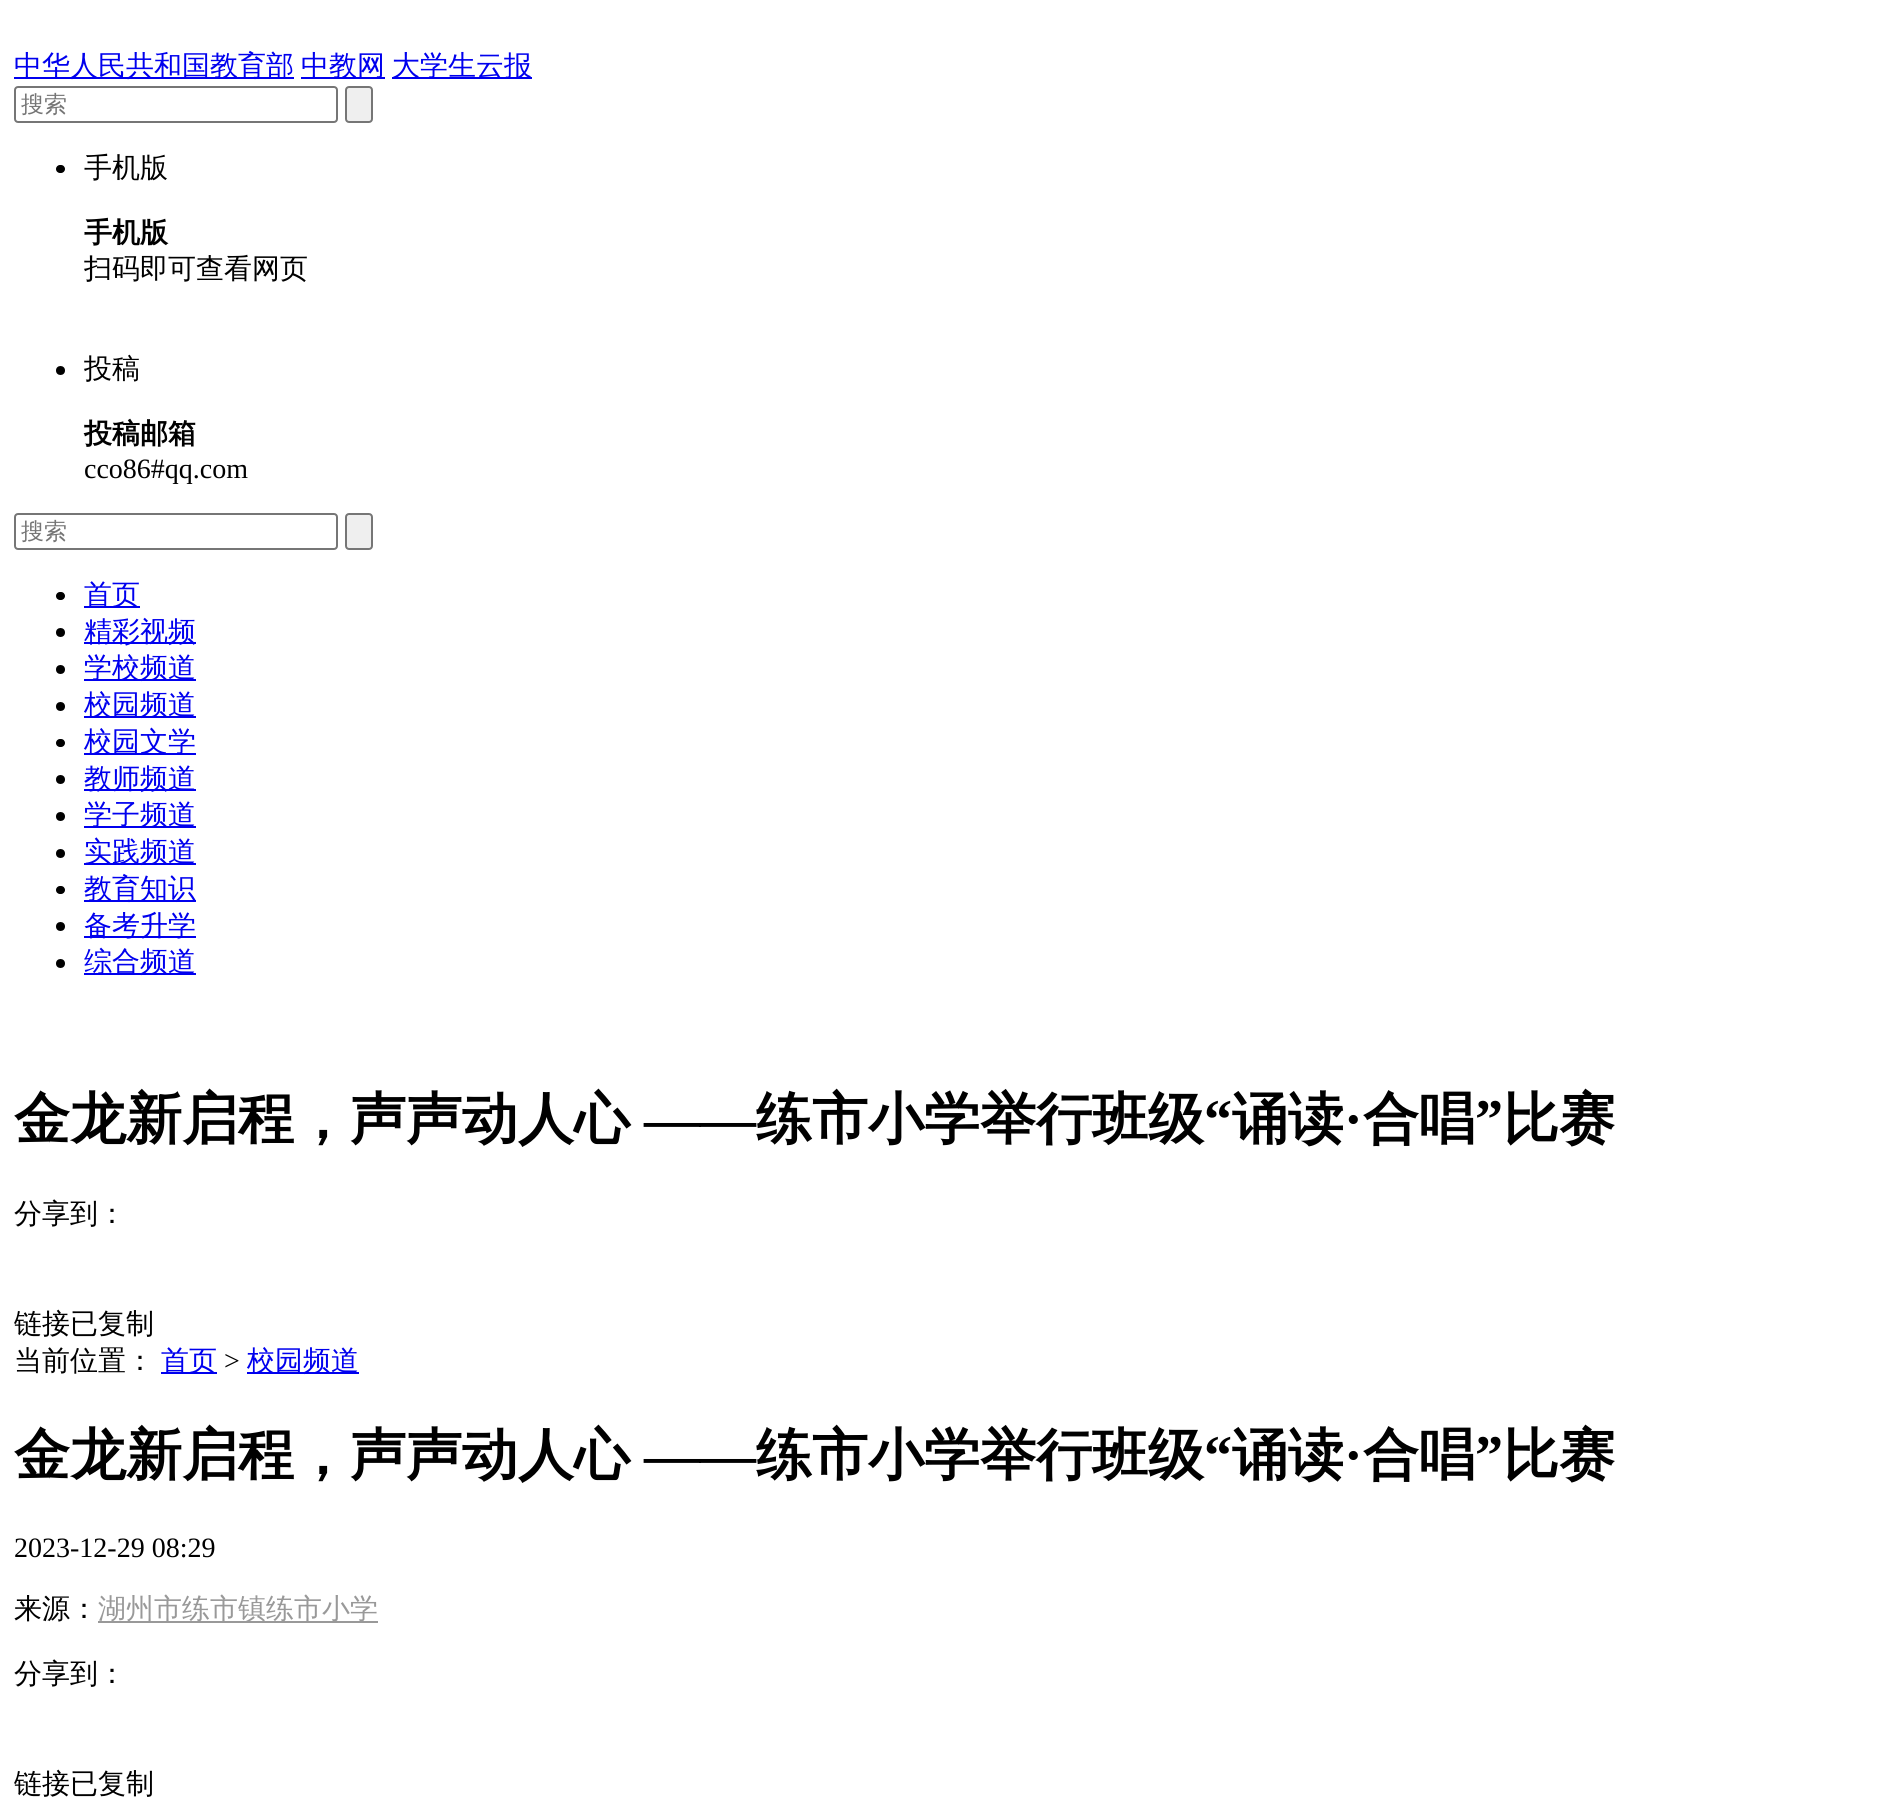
import math
import cairocffi as cairo

surface = cairo.ImageSurface(cairo.FORMAT_RGB24, 1885, 1805)
cr = cairo.Context(surface)
options = cairo.FontOptions()
options.set_hint_metrics(cairo.HINT_METRICS_OFF)
options.set_hint_style(cairo.HINT_STYLE_NONE)
cr.set_font_options(options)
cr.set_miter_limit(4)


def use_color(code):
    cr.set_source_rgb(*(v / 255 for v in bytes.fromhex(code[-6:])))


def round_rect(x, y, w, h, r):
    cr.new_sub_path()
    for i, (u, v) in enumerate([(x + w - r, y + h - r), (x + r, y + h - r), (x + r, y + r), (x + w - r, y + r)]):
        cr.arc(u, v, r, i * math.pi / 2, (i + 1) * math.pi / 2)
    cr.close_path()


use_color("#ffffff")
cr.paint()
use_color("#0000ee")
cr.rectangle(14, 77, 280, 2)
cr.fill()
cr.select_font_face("WenQuanYi Zen Hei Medium")
cr.set_font_size(28)
cr.move_to(14, 75)
cr.show_text("中华人民共和国教育部")
cr.rectangle(301, 77, 84, 2)
cr.fill()
cr.move_to(301, 75)
cr.show_text("中教网")
cr.rectangle(392, 77, 140, 2)
cr.fill()
cr.move_to(392, 75)
cr.show_text("大学生云报")
round_rect(15, 87, 322, 35, 3)
use_color("#767676")
cr.stroke()
cr.set_font_size(23)
use_color("#757575")
cr.move_to(21, 112)
cr.show_text("搜索")
use_color("#efefef")
round_rect(346, 87, 26, 35, 3)
cr.fill_preserve()
use_color("#767676")
cr.stroke()
use_color("#000000")
round_rect(56, 165, 9, 8, 4)
cr.fill()
cr.set_font_size(28)
cr.move_to(84, 177)
cr.show_text("手机版")
cr.select_font_face("WenQuanYi Zen Hei", cairo.FONT_SLANT_NORMAL, cairo.FONT_WEIGHT_BOLD)
cr.move_to(84, 242)
cr.show_text("手机版")
cr.select_font_face("WenQuanYi Zen Hei Medium")
cr.move_to(84, 278)
cr.show_text("扫码即可查看网页")
cr.new_path()
cr.arc(60.5, 370.5, 4.5, 0, 2 * math.pi)
cr.fill()
cr.move_to(84, 378)
cr.show_text("投稿")
cr.select_font_face("WenQuanYi Zen Hei", cairo.FONT_SLANT_NORMAL, cairo.FONT_WEIGHT_BOLD)
cr.move_to(84, 443)
cr.show_text("投稿邮箱")
cr.select_font_face("Liberation Serif")
cr.move_to(84, 478)
cr.show_text("cco86#qq.com")
round_rect(15, 514, 322, 35, 3)
use_color("#767676")
cr.stroke()
cr.select_font_face("WenQuanYi Zen Hei Medium")
cr.set_font_size(23)
use_color("#757575")
cr.move_to(21, 539)
cr.show_text("搜索")
use_color("#efefef")
round_rect(346, 514, 26, 35, 3)
cr.fill_preserve()
use_color("#767676")
cr.stroke()
use_color("#000000")
round_rect(56, 592, 9, 8, 4)
cr.fill()
use_color("#0000ee")
cr.rectangle(84, 606, 56, 2)
cr.fill()
cr.set_font_size(28)
cr.move_to(84, 604)
cr.show_text("首页")
use_color("#000000")
cr.new_path()
cr.arc(60.5, 632.5, 4.5, 0, 2 * math.pi)
cr.fill()
use_color("#0000ee")
cr.rectangle(84, 642, 112, 2)
cr.fill()
cr.move_to(84, 641)
cr.show_text("精彩视频")
use_color("#000000")
cr.new_path()
cr.arc(60.5, 669.5, 4.5, 0, 2 * math.pi)
cr.fill()
use_color("#0000ee")
cr.rectangle(84, 679, 112, 2)
cr.fill()
cr.move_to(84, 677)
cr.show_text("学校频道")
use_color("#000000")
cr.new_path()
cr.arc(60.5, 706.5, 4.5, 0, 2 * math.pi)
cr.fill()
use_color("#0000ee")
cr.rectangle(84, 716, 112, 2)
cr.fill()
cr.move_to(84, 714)
cr.show_text("校园频道")
use_color("#000000")
round_rect(56, 739, 9, 8, 4)
cr.fill()
use_color("#0000ee")
cr.rectangle(84, 753, 112, 2)
cr.fill()
cr.move_to(84, 751)
cr.show_text("校园文学")
use_color("#000000")
cr.new_path()
cr.arc(60.5, 779.5, 4.5, 0, 2 * math.pi)
cr.fill()
use_color("#0000ee")
cr.rectangle(84, 789, 112, 2)
cr.fill()
cr.move_to(84, 788)
cr.show_text("教师频道")
use_color("#000000")
cr.new_path()
cr.arc(60.5, 816.5, 4.5, 0, 2 * math.pi)
cr.fill()
use_color("#0000ee")
cr.rectangle(84, 826, 112, 2)
cr.fill()
cr.move_to(84, 824)
cr.show_text("学子频道")
use_color("#000000")
cr.new_path()
cr.arc(60.5, 853.5, 4.5, 0, 2 * math.pi)
cr.fill()
use_color("#0000ee")
cr.rectangle(84, 863, 112, 2)
cr.fill()
cr.move_to(84, 861)
cr.show_text("实践频道")
use_color("#000000")
round_rect(56, 886, 9, 8, 4)
cr.fill()
use_color("#0000ee")
cr.rectangle(84, 900, 112, 2)
cr.fill()
cr.move_to(84, 898)
cr.show_text("教育知识")
use_color("#000000")
cr.new_path()
cr.arc(60.5, 926.5, 4.5, 0, 2 * math.pi)
cr.fill()
use_color("#0000ee")
cr.rectangle(84, 936, 112, 2)
cr.fill()
cr.move_to(84, 935)
cr.show_text("备考升学")
use_color("#000000")
cr.new_path()
cr.arc(60.5, 963.5, 4.5, 0, 2 * math.pi)
cr.fill()
use_color("#0000ee")
cr.rectangle(84, 973, 112, 2)
cr.fill()
cr.move_to(84, 971)
cr.show_text("综合频道")
cr.select_font_face("WenQuanYi Zen Hei", cairo.FONT_SLANT_NORMAL, cairo.FONT_WEIGHT_BOLD)
cr.set_font_size(56)
use_color("#000000")
cr.move_to(14, 1138)
cr.show_text("金龙新启程，声声动人心")
cr.select_font_face("Liberation Serif", cairo.FONT_SLANT_NORMAL, cairo.FONT_WEIGHT_BOLD)
cr.move_to(644, 1138)
cr.show_text("——")
cr.select_font_face("WenQuanYi Zen Hei", cairo.FONT_SLANT_NORMAL, cairo.FONT_WEIGHT_BOLD)
cr.move_to(756, 1138)
cr.show_text("练市小学举行班级")
cr.select_font_face("Liberation Serif", cairo.FONT_SLANT_NORMAL, cairo.FONT_WEIGHT_BOLD)
cr.move_to(1204, 1138)
cr.show_text("“")
cr.select_font_face("WenQuanYi Zen Hei", cairo.FONT_SLANT_NORMAL, cairo.FONT_WEIGHT_BOLD)
cr.move_to(1232, 1138)
cr.show_text("诵读")
cr.move_to(1363, 1138)
cr.show_text("合唱")
cr.select_font_face("Liberation Serif", cairo.FONT_SLANT_NORMAL, cairo.FONT_WEIGHT_BOLD)
cr.move_to(1475, 1138)
cr.show_text("”")
cr.select_font_face("WenQuanYi Zen Hei", cairo.FONT_SLANT_NORMAL, cairo.FONT_WEIGHT_BOLD)
cr.move_to(1503, 1138)
cr.show_text("比赛")
cr.select_font_face("Liberation Serif", cairo.FONT_SLANT_NORMAL, cairo.FONT_WEIGHT_BOLD)
cr.move_to(1344, 1138)
cr.show_text("·")
cr.select_font_face("WenQuanYi Zen Hei Medium")
cr.set_font_size(28)
cr.move_to(14, 1223)
cr.show_text("分享到：")
cr.move_to(14, 1333)
cr.show_text("链接已复制")
cr.move_to(14, 1370)
cr.show_text("当前位置：")
use_color("#0000ee")
cr.rectangle(161, 1372, 56, 2)
cr.fill()
cr.move_to(161, 1370)
cr.show_text("首页")
cr.select_font_face("Liberation Serif")
use_color("#000000")
cr.move_to(224, 1370)
cr.show_text(">")
use_color("#0000ee")
cr.rectangle(247, 1372, 112, 2)
cr.fill()
cr.select_font_face("WenQuanYi Zen Hei Medium")
cr.move_to(247, 1370)
cr.show_text("校园频道")
cr.select_font_face("WenQuanYi Zen Hei", cairo.FONT_SLANT_NORMAL, cairo.FONT_WEIGHT_BOLD)
cr.set_font_size(56)
use_color("#000000")
cr.move_to(14, 1474)
cr.show_text("金龙新启程，声声动人心")
cr.select_font_face("Liberation Serif", cairo.FONT_SLANT_NORMAL, cairo.FONT_WEIGHT_BOLD)
cr.move_to(644, 1474)
cr.show_text("——")
cr.select_font_face("WenQuanYi Zen Hei", cairo.FONT_SLANT_NORMAL, cairo.FONT_WEIGHT_BOLD)
cr.move_to(756, 1474)
cr.show_text("练市小学举行班级")
cr.select_font_face("Liberation Serif", cairo.FONT_SLANT_NORMAL, cairo.FONT_WEIGHT_BOLD)
cr.move_to(1204, 1474)
cr.show_text("“")
cr.select_font_face("WenQuanYi Zen Hei", cairo.FONT_SLANT_NORMAL, cairo.FONT_WEIGHT_BOLD)
cr.move_to(1232, 1474)
cr.show_text("诵读")
cr.move_to(1363, 1474)
cr.show_text("合唱")
cr.select_font_face("Liberation Serif", cairo.FONT_SLANT_NORMAL, cairo.FONT_WEIGHT_BOLD)
cr.move_to(1475, 1474)
cr.show_text("”")
cr.select_font_face("WenQuanYi Zen Hei", cairo.FONT_SLANT_NORMAL, cairo.FONT_WEIGHT_BOLD)
cr.move_to(1503, 1474)
cr.show_text("比赛")
cr.select_font_face("Liberation Serif", cairo.FONT_SLANT_NORMAL, cairo.FONT_WEIGHT_BOLD)
cr.move_to(1344, 1474)
cr.show_text("·")
cr.select_font_face("Liberation Serif")
cr.set_font_size(28)
cr.move_to(14, 1557)
cr.show_text("2023-12-29 08:29")
cr.select_font_face("WenQuanYi Zen Hei Medium")
cr.move_to(14, 1618)
cr.show_text("来源：")
use_color("#999999")
cr.rectangle(98, 1621, 280, 2)
cr.fill()
cr.move_to(98, 1618)
cr.show_text("湖州市练市镇练市小学")
use_color("#000000")
cr.move_to(14, 1683)
cr.show_text("分享到：")
cr.move_to(14, 1793)
cr.show_text("链接已复制")
surface.write_to_png("result.png")
